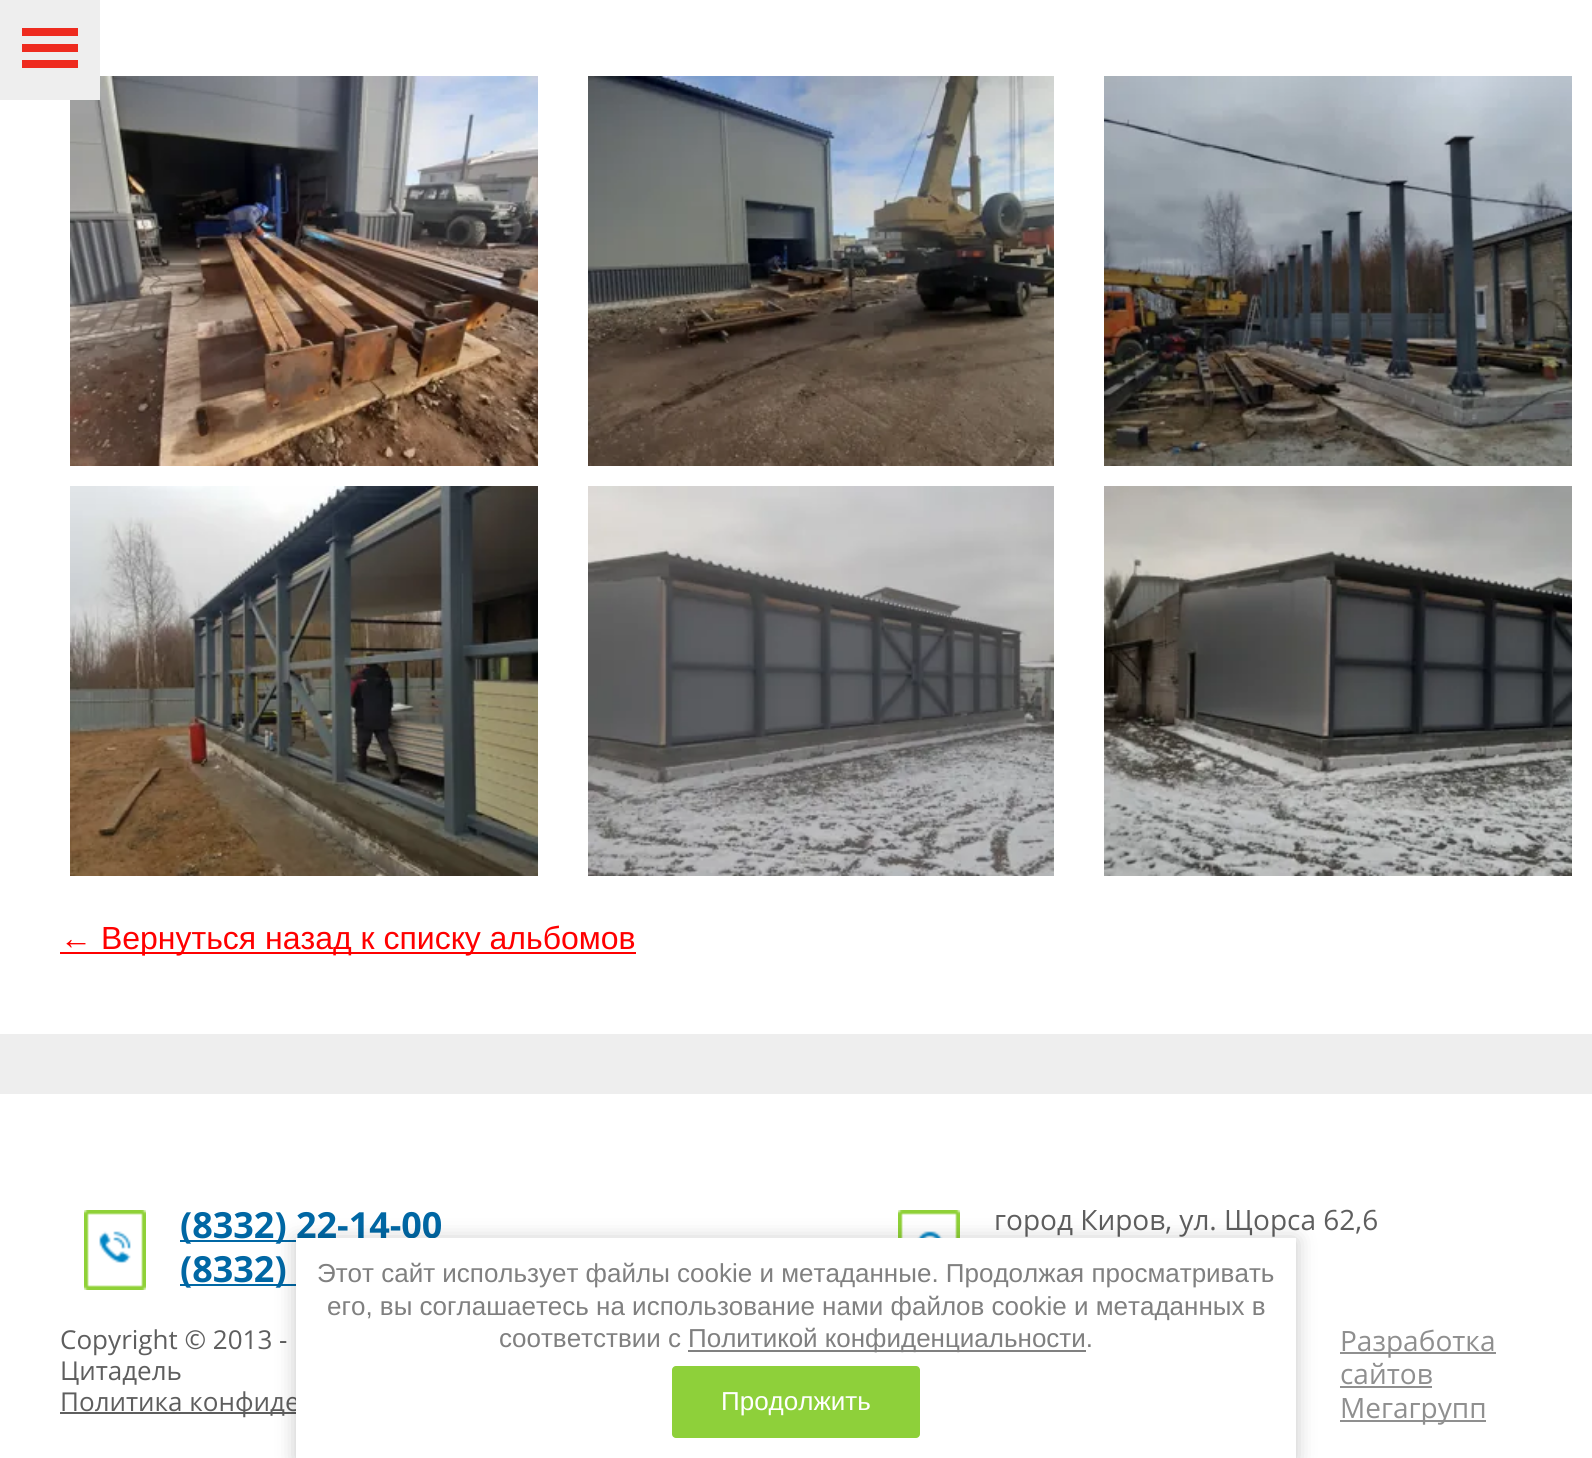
import math
import cairocffi as cairo

surface = cairo.ImageSurface(cairo.FORMAT_RGB24, 1592, 1458)
cr = cairo.Context(surface)
options = cairo.FontOptions()
options.set_hint_metrics(cairo.HINT_METRICS_OFF)
options.set_hint_style(cairo.HINT_STYLE_NONE)
cr.set_font_options(options)
cr.set_miter_limit(4)


def use_color(code):
    cr.set_source_rgb(*(v / 255 for v in bytes.fromhex(code[-6:])))


def round_rect(x, y, w, h, r):
    cr.new_sub_path()
    for i, (u, v) in enumerate([(x + w - r, y + h - r), (x + r, y + h - r), (x + r, y + r), (x + w - r, y + r)]):
        cr.arc(u, v, r, i * math.pi / 2, (i + 1) * math.pi / 2)
    cr.close_path()


def shadow(x, y, w, h, r, blur, alpha):
    cr.push_group_with_content(cairo.CONTENT_ALPHA)
    cr.set_operator(cairo.OPERATOR_SOURCE)
    for i in range(15, -16, -2):
        e = blur * i / 6
        if min(w, h) + 2 * e > 0:
            cr.set_source_rgba(0, 0, 0, alpha * math.erfc((i - 1) / 8.5) / 2)
            round_rect(x - e, y - e, w + 2 * e, h + 2 * e, max(0, min(r + e + blur * .6, min(w, h) / 2 + e)))
            cr.fill()
    cr.mask(cr.pop_group())


def picture(path, x, y, w, h):
    cr.save()
    cr.set_source_surface(cairo.ImageSurface.create_from_png(path), x, y)
    cr.rectangle(x, y, w, h)
    cr.fill()
    cr.restore()


use_color("#eeeeee")
cr.paint()
use_color("#ffffff")
cr.rectangle(0, 0, 1592, 1034)
cr.fill()
picture("img1.png", 70, 76, 468, 390)
use_color("#eeeeee")
cr.rectangle(0, 0, 100, 100)
cr.fill()
use_color("#ee2b1f")
cr.rectangle(22, 28, 56, 8)
cr.fill()
cr.rectangle(22, 44, 56, 8)
cr.fill()
cr.rectangle(22, 60, 56, 8)
cr.fill()
picture("img2.png", 588, 76, 466, 390)
picture("img3.png", 1104, 76, 468, 390)
picture("img4.png", 70, 486, 468, 390)
picture("img5.png", 588, 486, 466, 390)
picture("img6.png", 1104, 486, 468, 390)
use_color("#ff0000")
cr.rectangle(60, 952, 576, 2)
cr.fill()
cr.select_font_face("Liberation Sans")
cr.set_font_size(32)
cr.move_to(60, 949)
cr.show_text("← Вернуться назад к списку альбомов")
use_color("#ffffff")
cr.rectangle(0, 1094, 1592, 364)
cr.fill()
picture("img7.png", 84, 1210, 62, 80)
use_color("#0067a4")
cr.rectangle(180, 1240, 116, 2)
cr.fill()
cr.select_font_face("Open Sans", cairo.FONT_SLANT_NORMAL, cairo.FONT_WEIGHT_BOLD)
cr.set_font_size(36)
cr.move_to(180, 1238)
cr.show_text("(8332) 22-14-00")
cr.rectangle(180, 1284, 116, 2)
cr.fill()
cr.move_to(180, 1282)
cr.show_text("(8332)")
picture("img8.png", 898, 1210, 62, 28)
cr.select_font_face("Open Sans")
cr.set_font_size(28)
use_color("#5e5e5e")
cr.move_to(994, 1230)
cr.show_text("город Киров, ул. Щорса 62,6")
cr.set_font_size(26)
cr.move_to(60, 1349)
cr.show_text("Copyright © 2013 -")
cr.move_to(60, 1380)
cr.show_text("Цитадель")
cr.rectangle(60, 1412, 236, 2)
cr.fill()
cr.move_to(60, 1411)
cr.show_text("Политика конфиде")
use_color("#8f8f8f")
cr.rectangle(1340, 1352, 156, 2)
cr.fill()
cr.set_font_size(28)
cr.move_to(1340, 1351)
cr.show_text("Разработка")
cr.move_to(1340, 1384)
cr.show_text("сайтов")
cr.rectangle(1340, 1386, 92, 2)
cr.fill()
cr.rectangle(1340, 1420, 146, 2)
cr.fill()
cr.move_to(1340, 1418)
cr.show_text("Мегагрупп")
use_color("#000000")
shadow(296, 1240, 1000, 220, 0, 10, 0.23)
use_color("#ffffff")
cr.rectangle(296, 1238, 1000, 220)
cr.fill()
cr.select_font_face("Liberation Sans")
cr.set_font_size(26)
use_color("#808080")
cr.move_to(317, 1282)
cr.show_text("Этот сайт использует файлы cookie и метаданные. Продолжая просматривать")
cr.move_to(327, 1315)
cr.show_text("его, вы соглашаетесь на использование нами файлов cookie и метаданных в")
cr.move_to(499, 1347)
cr.show_text("соответствии с")
cr.rectangle(688, 1350, 398, 2)
cr.fill()
cr.move_to(688, 1347)
cr.show_text("Политикой конфиденциальности.")
use_color("#8ed03a")
round_rect(672, 1366, 248, 72, 4)
cr.fill()
use_color("#ffffff")
cr.move_to(721, 1410)
cr.show_text("Продолжить")
surface.write_to_png("result.png")
